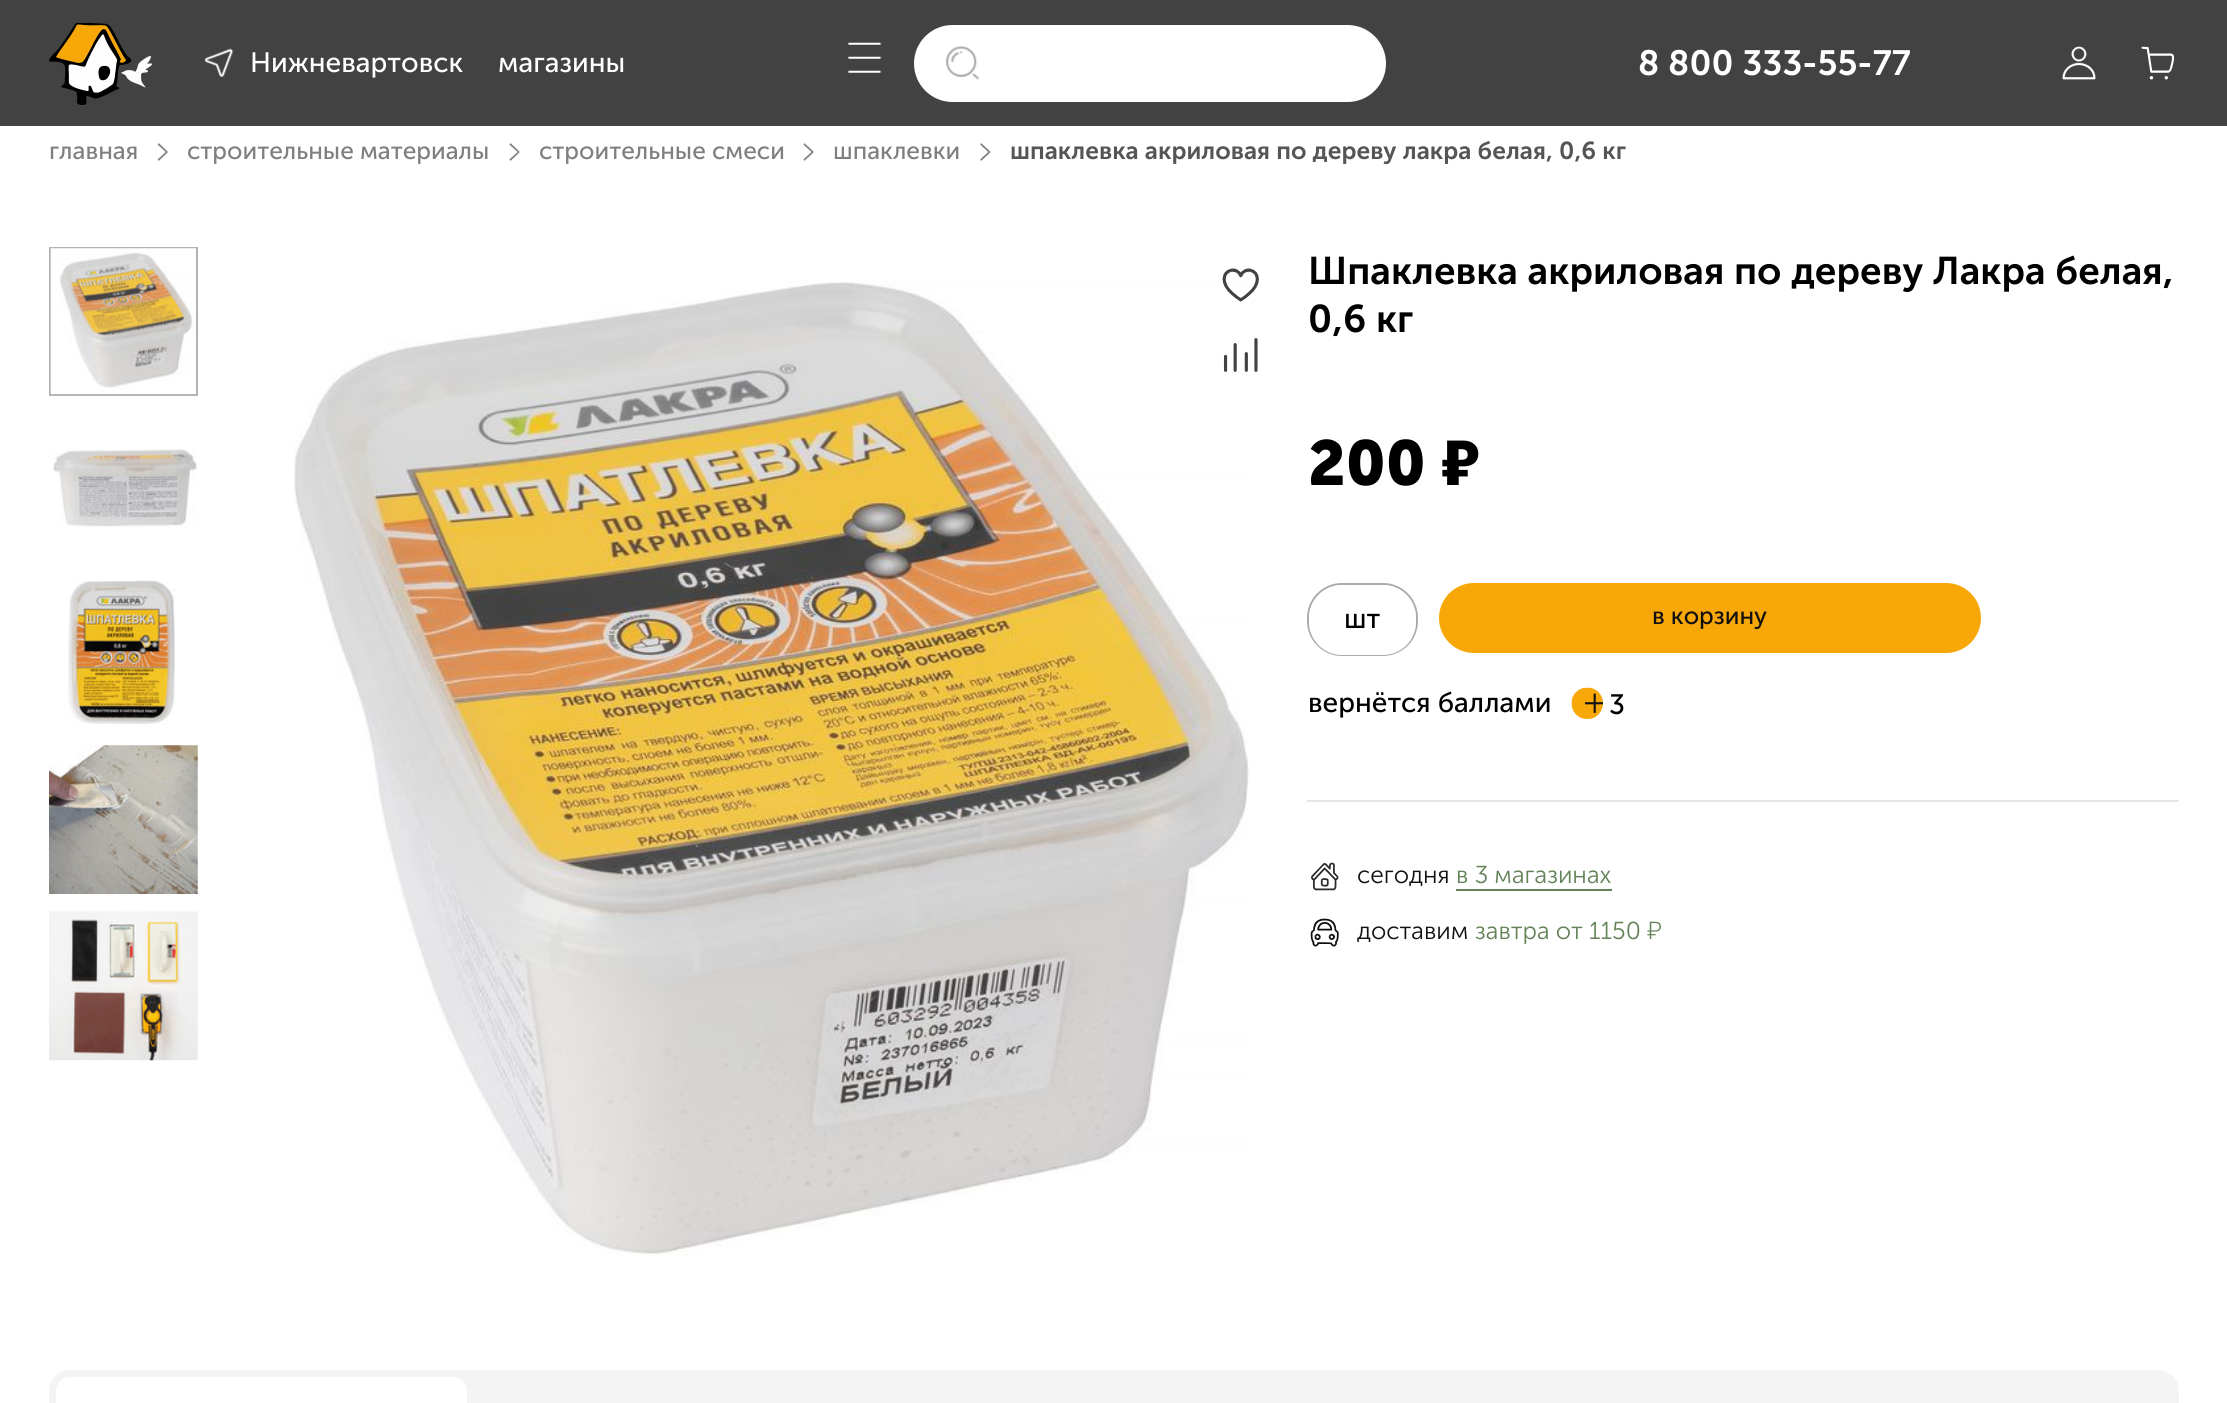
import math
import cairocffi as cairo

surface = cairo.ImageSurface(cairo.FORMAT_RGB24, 2227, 1403)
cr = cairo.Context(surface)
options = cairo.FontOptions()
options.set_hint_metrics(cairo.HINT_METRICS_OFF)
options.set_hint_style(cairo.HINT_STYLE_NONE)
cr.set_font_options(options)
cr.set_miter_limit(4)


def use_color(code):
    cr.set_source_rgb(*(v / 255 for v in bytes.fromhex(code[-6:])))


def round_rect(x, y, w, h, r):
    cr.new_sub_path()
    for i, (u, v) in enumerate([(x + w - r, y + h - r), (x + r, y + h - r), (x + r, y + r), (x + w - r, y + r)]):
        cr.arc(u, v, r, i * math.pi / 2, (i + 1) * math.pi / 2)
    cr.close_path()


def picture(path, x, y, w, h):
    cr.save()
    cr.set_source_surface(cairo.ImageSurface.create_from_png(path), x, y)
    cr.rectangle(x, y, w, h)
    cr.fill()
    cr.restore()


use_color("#ffffff")
cr.paint()
use_color("#424242")
cr.rectangle(0, 0, 2227, 126)
cr.fill()
picture("img1.png", 49, 23, 103, 82)
picture("img2.png", 204, 48, 30, 29)
cr.select_font_face("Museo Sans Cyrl")
cr.set_font_size(28)
use_color("#ffffff")
cr.move_to(250, 72)
cr.show_text("Нижневартовск")
cr.move_to(498, 72)
cr.show_text("магазины")
picture("img3.png", 848, 42, 34, 31)
round_rect(914, 25, 472, 77, 38.5)
cr.fill()
picture("img4.png", 945, 45, 35, 35)
cr.select_font_face("Museo Sans Cyrl SemiBold")
cr.set_font_size(35)
cr.move_to(1638, 75)
cr.show_text("8 800 333-55-77")
picture("img5.png", 2062, 46, 34, 34)
picture("img6.png", 2141, 46, 34, 34)
cr.select_font_face("Museo Sans Cyrl")
cr.set_font_size(24.5)
use_color("#807f7f")
cr.move_to(49, 159)
cr.show_text("главная")
picture("img7.png", 157, 143, 11, 18)
cr.move_to(187, 159)
cr.show_text("строительные материалы")
picture("img8.png", 509, 143, 11, 18)
cr.move_to(539, 159)
cr.show_text("строительные смеси")
picture("img8.png", 803, 143, 11, 18)
cr.move_to(833, 159)
cr.show_text("шпаклевки")
picture("img9.png", 980, 143, 11, 18)
cr.select_font_face("Museo Sans Cyrl SemiBold")
use_color("#555554")
cr.move_to(1010, 159)
cr.show_text("шпаклевка акриловая по дереву лакра белая, 0,6 кг")
cr.rectangle(50, 248, 147, 147)
use_color("#b3b3b3")
cr.stroke()
picture("img10.png", 50, 248, 146, 147)
picture("img11.png", 53, 449, 144, 79)
picture("img12.png", 68, 580, 109, 145)
picture("img13.png", 49, 745, 149, 149)
picture("img14.png", 49, 911, 149, 150)
picture("img15.png", 293, 280, 957, 977)
picture("img16.png", 1222, 268, 37, 34)
picture("img17.png", 1223, 338, 35, 34)
cr.set_font_size(38.5)
use_color("#000000")
cr.move_to(1308, 284)
cr.show_text("Шпаклевка акриловая по дереву Лакра белая,")
cr.move_to(1308, 332)
cr.show_text("0,6 кг")
cr.select_font_face("Museo Sans Cyrl", cairo.FONT_SLANT_NORMAL, cairo.FONT_WEIGHT_BOLD)
cr.set_font_size(63)
cr.move_to(1308, 485)
cr.show_text("200")
cr.select_font_face("Nunito Sans Black")
cr.move_to(1441, 485)
cr.show_text("₽")
round_rect(1308, 584, 109, 71, 34)
use_color("#aaaaa9")
cr.stroke()
use_color("#ffffff")
round_rect(1309, 585, 107, 70, 33)
cr.fill()
cr.select_font_face("Museo Sans Cyrl")
cr.set_font_size(28)
use_color("#000000")
cr.move_to(1344, 628)
cr.show_text("шт")
use_color("#f7a707")
round_rect(1439, 583, 542, 70, 35)
cr.fill()
cr.set_font_size(24.5)
use_color("#11100f")
cr.move_to(1652, 624)
cr.show_text("в корзину")
cr.set_font_size(28)
use_color("#000000")
cr.move_to(1308, 712)
cr.show_text("вернётся баллами")
picture("img18.png", 1571, 687, 32, 32)
cr.move_to(1609, 714)
cr.show_text("3")
use_color("#e6e6e6")
cr.rectangle(1307, 800, 872, 2)
cr.fill()
picture("img19.png", 1311, 862, 28, 29)
cr.select_font_face("Museo Sans Cyrl Light")
cr.set_font_size(24.5)
use_color("#11100f")
cr.move_to(1357, 883)
cr.show_text("сегодня")
use_color("#638258")
cr.move_to(1456, 883)
cr.show_text("в 3 магазинах")
cr.rectangle(1456, 889, 156, 2)
cr.fill()
picture("img20.png", 1310, 918, 29, 29)
use_color("#11100f")
cr.move_to(1357, 939)
cr.show_text("доставим")
use_color("#638258")
cr.move_to(1475, 939)
cr.show_text("завтра от 1150")
cr.select_font_face("Nunito Sans Light")
cr.move_to(1647, 939)
cr.show_text("₽")
use_color("#f4f4f4")
round_rect(49, 1370, 2130, 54, 21)
cr.fill()
use_color("#ffffff")
round_rect(56, 1377, 411, 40, 14)
cr.fill()
surface.write_to_png("result.png")
